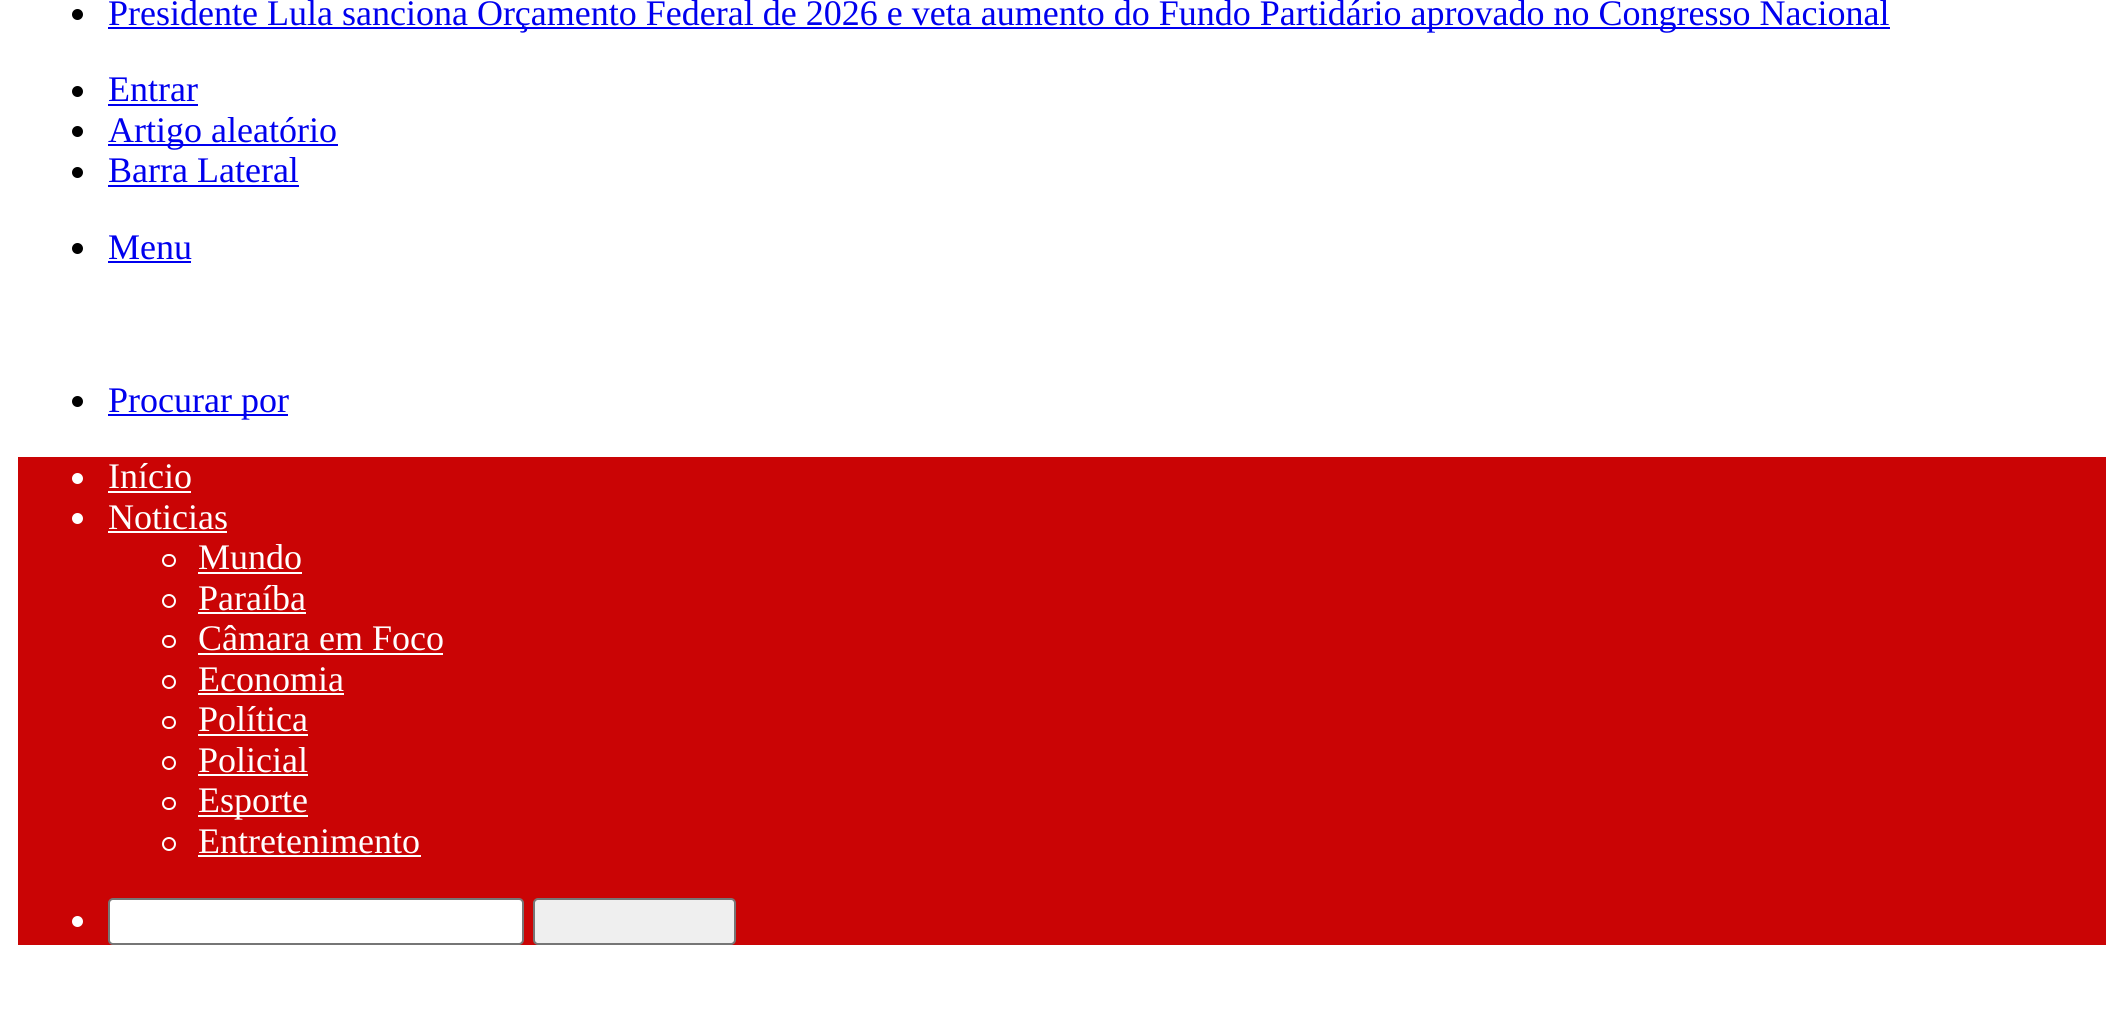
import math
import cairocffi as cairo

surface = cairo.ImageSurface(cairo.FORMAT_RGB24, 2123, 1033)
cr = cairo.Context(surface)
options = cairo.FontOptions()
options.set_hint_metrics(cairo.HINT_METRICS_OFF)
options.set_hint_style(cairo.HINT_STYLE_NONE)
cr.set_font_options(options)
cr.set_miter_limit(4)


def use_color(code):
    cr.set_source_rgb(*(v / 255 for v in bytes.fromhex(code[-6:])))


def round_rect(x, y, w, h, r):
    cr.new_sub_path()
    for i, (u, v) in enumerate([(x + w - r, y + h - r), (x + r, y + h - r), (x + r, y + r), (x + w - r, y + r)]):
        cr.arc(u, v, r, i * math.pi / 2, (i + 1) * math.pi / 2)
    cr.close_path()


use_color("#ffffff")
cr.paint()
use_color("#000000")
cr.arc(77.5, 14.5, 5.5, 0, 2 * math.pi)
cr.fill()
use_color("#0000ee")
cr.rectangle(108, 27, 1782, 2)
cr.fill()
cr.select_font_face("Liberation Serif")
cr.set_font_size(36)
cr.move_to(108, 25)
cr.show_text("Presidente Lula sanciona Orçamento Federal de 2026 e veta aumento do Fundo Partidário aprovado no Congresso Nacional")
use_color("#000000")
cr.new_path()
cr.arc(77.5, 91.5, 5.5, 0, 2 * math.pi)
cr.fill()
use_color("#0000ee")
cr.move_to(108, 101)
cr.show_text("Entrar")
cr.rectangle(108, 104, 90, 2)
cr.fill()
use_color("#000000")
cr.arc(77.5, 131.5, 5.5, 0, 2 * math.pi)
cr.fill()
use_color("#0000ee")
cr.rectangle(108, 144, 230, 2)
cr.fill()
cr.move_to(108, 142)
cr.show_text("Artigo aleatório")
use_color("#000000")
cr.new_path()
cr.arc(77.5, 172.5, 5.5, 0, 2 * math.pi)
cr.fill()
use_color("#0000ee")
cr.move_to(108, 182)
cr.show_text("Barra Lateral")
cr.rectangle(108, 185, 191, 2)
cr.fill()
use_color("#000000")
cr.arc(77.5, 248.5, 5.5, 0, 2 * math.pi)
cr.fill()
use_color("#0000ee")
cr.move_to(108, 259)
cr.show_text("Menu")
cr.rectangle(108, 261, 83, 2)
cr.fill()
use_color("#000000")
cr.arc(77.5, 401.5, 5.5, 0, 2 * math.pi)
cr.fill()
use_color("#0000ee")
cr.rectangle(108, 414, 180, 2)
cr.fill()
cr.move_to(108, 412)
cr.show_text("Procurar por")
use_color("#ca0405")
cr.rectangle(18, 457, 2088, 488)
cr.fill()
use_color("#ffffff")
cr.arc(77.5, 478.5, 5.5, 0, 2 * math.pi)
cr.fill()
cr.move_to(108, 488)
cr.show_text("Início")
cr.rectangle(108, 491, 83, 2)
cr.fill()
cr.arc(77.5, 518.5, 5.5, 0, 2 * math.pi)
cr.fill()
cr.move_to(108, 529)
cr.show_text("Noticias")
cr.rectangle(108, 531, 119, 2)
cr.fill()
round_rect(163, 555, 12, 11, 5.5)
cr.stroke()
cr.move_to(198, 569)
cr.show_text("Mundo")
cr.rectangle(198, 572, 104, 2)
cr.fill()
cr.arc(169, 601, 6, 0, 2 * math.pi)
cr.stroke()
cr.move_to(198, 610)
cr.show_text("Paraíba")
cr.rectangle(198, 612, 108, 2)
cr.fill()
round_rect(163, 636, 12, 11, 5.5)
cr.stroke()
cr.move_to(198, 650)
cr.show_text("Câmara em Foco")
cr.rectangle(198, 653, 245, 2)
cr.fill()
cr.arc(169, 682, 6, 0, 2 * math.pi)
cr.stroke()
cr.move_to(198, 691)
cr.show_text("Economia")
cr.rectangle(198, 693, 146, 2)
cr.fill()
round_rect(163, 717, 12, 11, 5.5)
cr.stroke()
cr.move_to(198, 731)
cr.show_text("Política")
cr.rectangle(198, 734, 110, 2)
cr.fill()
cr.arc(169, 763, 6, 0, 2 * math.pi)
cr.stroke()
cr.move_to(198, 772)
cr.show_text("Policial")
cr.rectangle(198, 774, 110, 2)
cr.fill()
round_rect(163, 798, 12, 11, 5.5)
cr.stroke()
cr.rectangle(198, 815, 110, 2)
cr.fill()
cr.move_to(198, 812)
cr.show_text("Esporte")
cr.new_path()
cr.arc(169, 844, 6, 0, 2 * math.pi)
cr.stroke()
cr.move_to(198, 853)
cr.show_text("Entretenimento")
cr.rectangle(198, 855, 223, 2)
cr.fill()
cr.arc(77.5, 921.5, 5.5, 0, 2 * math.pi)
cr.fill()
round_rect(109, 899, 414, 45, 4)
cr.fill_preserve()
use_color("#767676")
cr.stroke()
use_color("#efefef")
round_rect(534, 899, 201, 45, 4)
cr.fill_preserve()
use_color("#767676")
cr.stroke()
surface.write_to_png("result.png")
